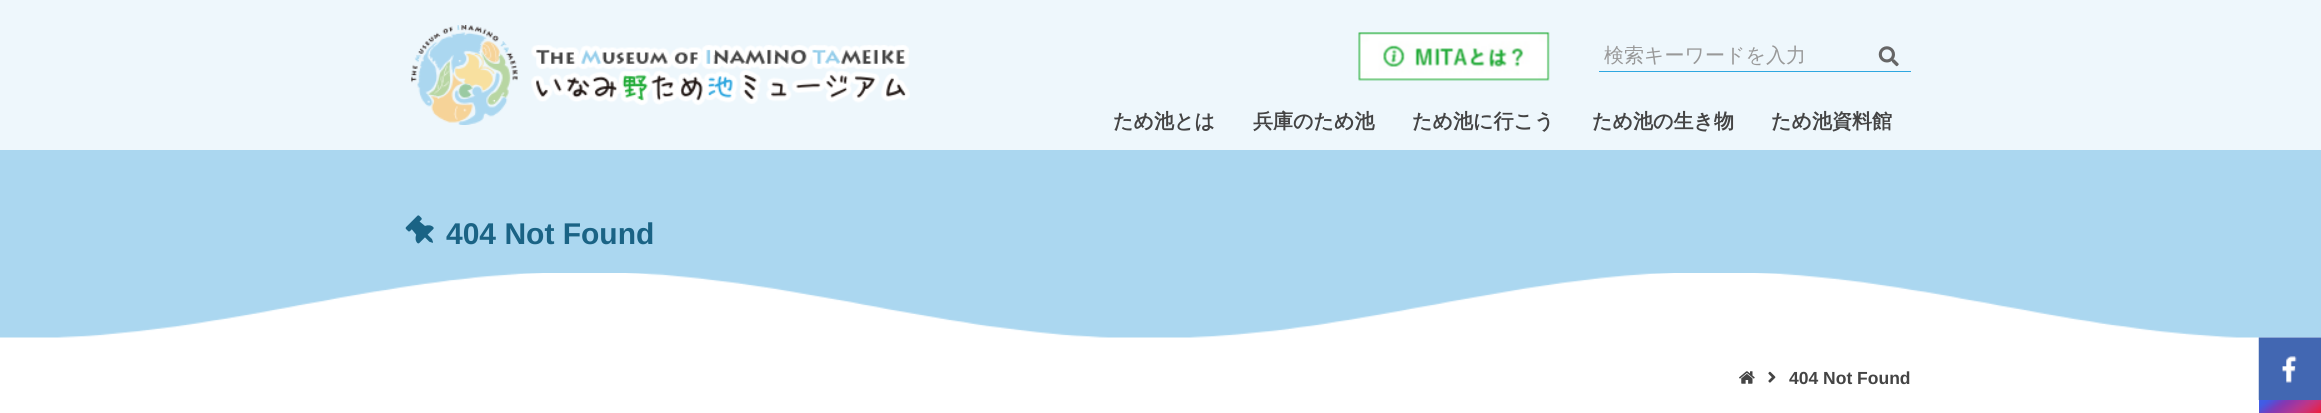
import math
import cairocffi as cairo

surface = cairo.ImageSurface(cairo.FORMAT_RGB24, 2321, 413)
cr = cairo.Context(surface)
options = cairo.FontOptions()
options.set_hint_metrics(cairo.HINT_METRICS_OFF)
options.set_hint_style(cairo.HINT_STYLE_NONE)
cr.set_font_options(options)
cr.set_miter_limit(4)


def use_color(code):
    cr.set_source_rgb(*(v / 255 for v in bytes.fromhex(code[-6:])))


def picture(path, x, y, w, h):
    cr.save()
    cr.set_source_surface(cairo.ImageSurface.create_from_png(path), x, y)
    cr.rectangle(x, y, w, h)
    cr.fill()
    cr.restore()


use_color("#ffffff")
cr.paint()
use_color("#eef7fc")
cr.rectangle(0, 0, 2321, 150)
cr.fill()
picture("img1.png", 411, 25, 499, 100)
use_color("#ffffff")
cr.rectangle(1359, 33, 190, 47)
cr.fill()
picture("img2.png", 1358, 32, 192, 49)
use_color("#2ea7e0")
cr.rectangle(1599, 71, 312, 1)
cr.fill()
cr.select_font_face("WenQuanYi Zen Hei Medium")
cr.set_font_size(20)
use_color("#999999")
cr.move_to(1604, 62)
cr.show_text("検索キーワードを入力")
picture("img3.png", 1878, 46, 21, 21)
cr.select_font_face("WenQuanYi Zen Hei", cairo.FONT_SLANT_NORMAL, cairo.FONT_WEIGHT_BOLD)
use_color("#444444")
cr.move_to(1113, 128)
cr.show_text("ため池とは")
cr.move_to(1253, 128)
cr.show_text("兵庫のため池")
cr.move_to(1412, 128)
cr.show_text("ため池に行こう")
cr.move_to(1592, 128)
cr.show_text("ため池の生き物")
cr.move_to(1771, 128)
cr.show_text("ため池資料館")
use_color("#abd7f0")
cr.rectangle(0, 150, 2321, 123)
cr.fill()
picture("img4.png", 405, 215, 29, 29)
cr.select_font_face("Liberation Sans", cairo.FONT_SLANT_NORMAL, cairo.FONT_WEIGHT_BOLD)
cr.set_font_size(30)
use_color("#1a6385")
cr.move_to(446, 244)
cr.show_text("404 Not Found")
picture("img5.png", 0, 273, 2321, 65)
picture("img6.png", 1739, 371, 16, 13)
picture("img7.png", 1768, 371, 8, 12)
cr.set_font_size(17.5)
use_color("#444444")
cr.move_to(1789, 384)
cr.show_text("404 Not Found")
picture("img8.png", 2258, 337, 63, 63)
picture("img9.png", 2259, 400, 62, 13)
surface.write_to_png("result.png")
